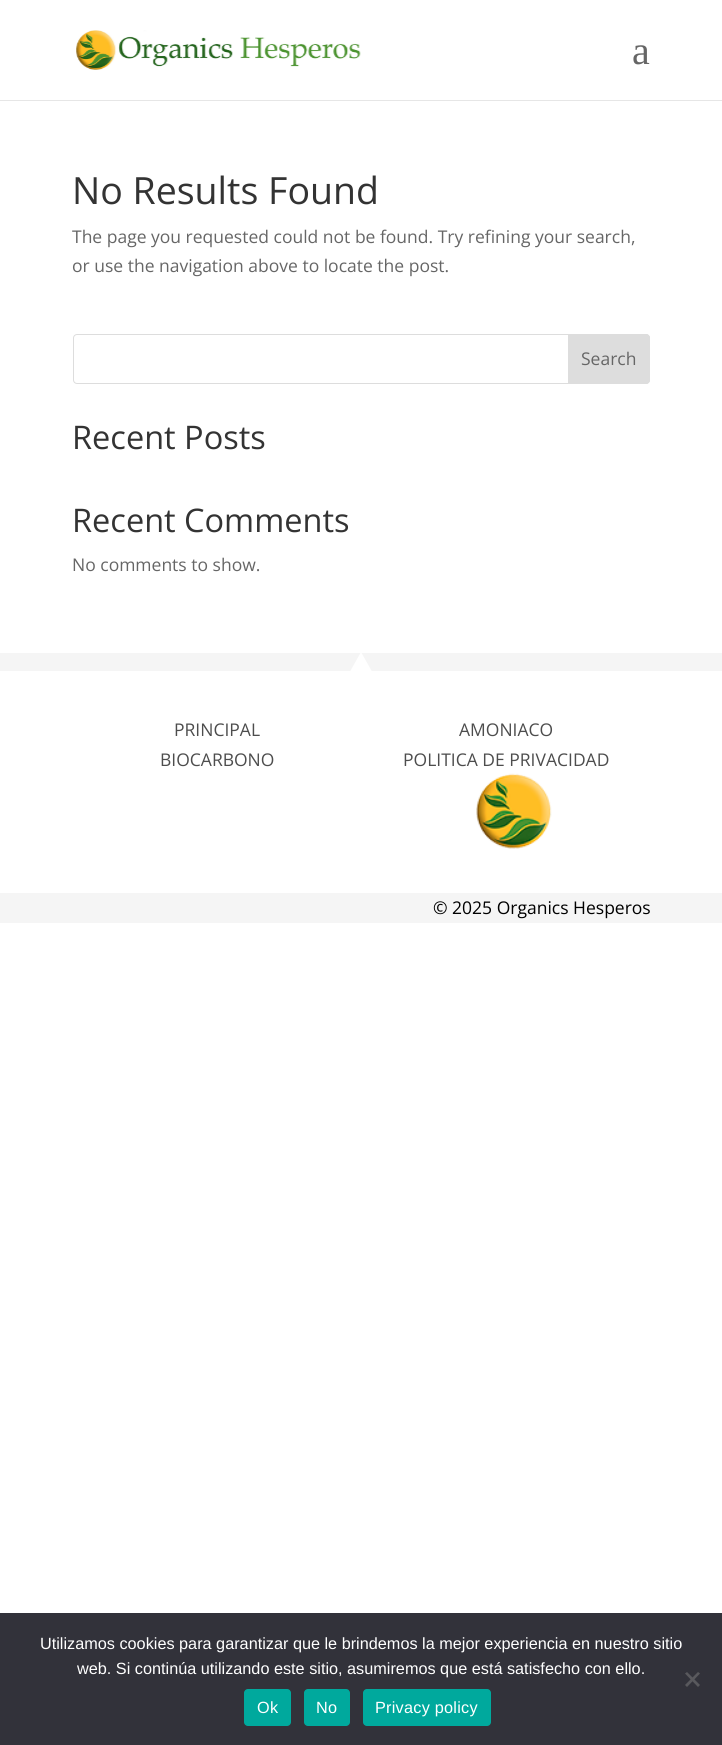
import math
import cairocffi as cairo

surface = cairo.ImageSurface(cairo.FORMAT_RGB24, 722, 1745)
cr = cairo.Context(surface)
options = cairo.FontOptions()
options.set_hint_metrics(cairo.HINT_METRICS_OFF)
options.set_hint_style(cairo.HINT_STYLE_NONE)
cr.set_font_options(options)
cr.set_miter_limit(4)


def use_color(code):
    cr.set_source_rgb(*(v / 255 for v in bytes.fromhex(code[-6:])))


def spaced_text(x, y, s, letter, word):
    cr.move_to(x, y)
    for ch in s:
        cr.show_text(ch)
        cr.rel_move_to(letter + word * (ch == ' '), 0)


def round_rect(x, y, w, h, r):
    cr.new_sub_path()
    for i, (u, v) in enumerate([(x + w - r, y + h - r), (x + r, y + h - r), (x + r, y + r), (x + w - r, y + r)]):
        cr.arc(u, v, r, i * math.pi / 2, (i + 1) * math.pi / 2)
    cr.close_path()


def picture(path, x, y, w, h):
    cr.save()
    cr.set_source_surface(cairo.ImageSurface.create_from_png(path), x, y)
    cr.rectangle(x, y, w, h)
    cr.fill()
    cr.restore()


use_color("#ffffff")
cr.paint()
use_color("#e6e6e6")
cr.new_path()
cr.move_to(0, 100)
cr.line_to(0, 101)
cr.line_to(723, 101)
cr.line_to(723, 1)
cr.line_to(722, 1)
cr.line_to(722, 100)
cr.close_path()
cr.fill()
picture("img1.png", 76, 30, 285, 40)
cr.select_font_face("Liberation Serif")
cr.set_font_size(40)
use_color("#666666")
cr.move_to(632, 64)
cr.show_text("a")
cr.select_font_face("Open Sans")
cr.set_font_size(37.5)
use_color("#333333")
cr.move_to(72, 204)
cr.show_text("No Results Found")
cr.set_font_size(17.5)
use_color("#666666")
cr.move_to(72, 243)
cr.show_text("The page you requested could not be found. Try refining your search,")
cr.move_to(72, 272)
cr.show_text("or use the navigation above to locate the post.")
round_rect(73.5, 334.5, 576, 49, 3.5)
use_color("#dddddd")
cr.set_line_width(1)
cr.stroke()
cr.new_path()
cr.move_to(568.5, 334.5)
cr.line_to(646, 334.5)
cr.curve_to(648, 334.5, 649.5, 336, 649.5, 338)
cr.line_to(649.5, 380)
cr.curve_to(649.5, 382, 648, 383.5, 646, 383.5)
cr.line_to(568.5, 383.5)
cr.close_path()
cr.fill_preserve()
cr.stroke()
use_color("#666666")
cr.move_to(581, 365)
cr.show_text("Search")
cr.set_font_size(32.5)
use_color("#333333")
cr.move_to(72, 449)
cr.show_text("Recent Posts")
cr.move_to(72, 532)
cr.show_text("Recent Comments")
cr.set_font_size(17.5)
use_color("#666666")
cr.move_to(72, 571)
cr.show_text("No comments to show.")
cr.save()
cr.rectangle(0, 653, 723, 18)
cr.clip()
use_color("#f5f5f5")
cr.new_path()
cr.move_to(406, 732)
cr.line_to(361, 652)
cr.line_to(316, 732)
cr.line_to(0, 732)
cr.line_to(0, 652)
cr.line_to(722, 652)
cr.line_to(722, 732)
cr.close_path()
cr.fill()
cr.restore()
use_color("#4d4d4d")
cr.move_to(174, 736)
cr.show_text("PRINCIPAL")
cr.move_to(459, 736)
cr.show_text("AMONIACO")
cr.move_to(160, 766)
cr.show_text("BIOCARBONO")
cr.move_to(403, 766)
cr.show_text("POLITICA DE PRIVACIDAD")
picture("img2.png", 476, 773, 76, 76)
use_color("#f5f5f5")
cr.rectangle(0, 893, 722, 30)
cr.fill()
use_color("#000000")
cr.move_to(433, 914)
cr.show_text("© 2025 Organics Hesperos")
use_color("#32323a")
cr.rectangle(0, 1613, 722, 132)
cr.fill()
cr.select_font_face("Liberation Sans")
cr.set_font_size(16.25)
use_color("#ffffff")
cr.move_to(40, 1649)
cr.show_text("Utilizamos cookies para garantizar que le brindemos la mejor experiencia en nuestro sitio")
cr.move_to(77, 1674)
cr.show_text("web. Si continúa utilizando este sitio, asumiremos que está satisfecho con ello.")
use_color("#59595d")
cr.new_path()
cr.move_to(698, 1672)
cr.line_to(700, 1673.5)
cr.line_to(687, 1687)
cr.line_to(685, 1685)
cr.close_path()
cr.fill()
cr.new_path()
cr.move_to(685, 1673.5)
cr.line_to(687, 1672)
cr.line_to(700, 1685)
cr.line_to(698, 1687)
cr.close_path()
cr.fill()
use_color("#00a99d")
round_rect(244, 1689, 47, 37, 4)
cr.fill()
use_color("#ffffff")
spaced_text(257, 1713, "Ok", 0.25, 0)
use_color("#00a99d")
round_rect(304, 1689, 46, 37, 4)
cr.fill()
use_color("#ffffff")
spaced_text(316, 1713, "No", 0.25, 0)
use_color("#00a99d")
round_rect(363, 1689, 128, 37, 4)
cr.fill()
use_color("#ffffff")
spaced_text(375, 1713, "Privacy policy", 0.25, 0)
surface.write_to_png("result.png")
